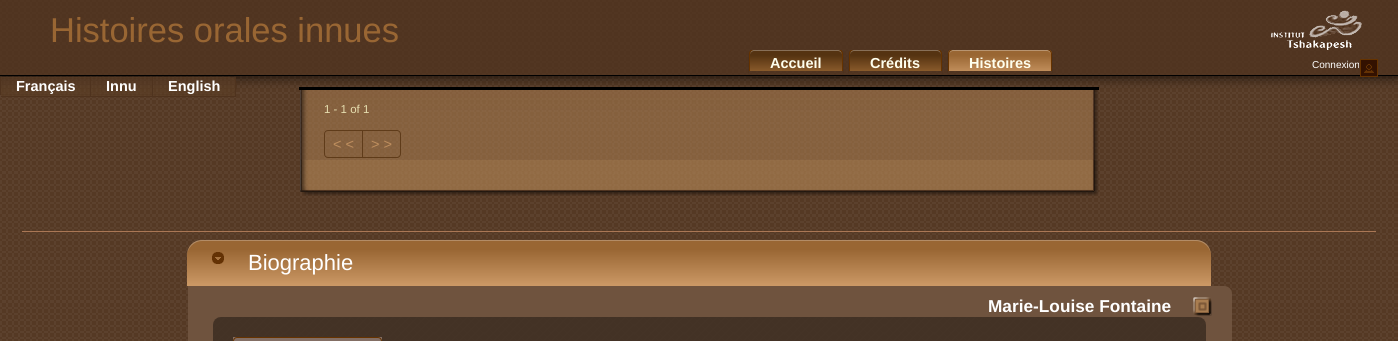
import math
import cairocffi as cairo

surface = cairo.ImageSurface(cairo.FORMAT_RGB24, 1398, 341)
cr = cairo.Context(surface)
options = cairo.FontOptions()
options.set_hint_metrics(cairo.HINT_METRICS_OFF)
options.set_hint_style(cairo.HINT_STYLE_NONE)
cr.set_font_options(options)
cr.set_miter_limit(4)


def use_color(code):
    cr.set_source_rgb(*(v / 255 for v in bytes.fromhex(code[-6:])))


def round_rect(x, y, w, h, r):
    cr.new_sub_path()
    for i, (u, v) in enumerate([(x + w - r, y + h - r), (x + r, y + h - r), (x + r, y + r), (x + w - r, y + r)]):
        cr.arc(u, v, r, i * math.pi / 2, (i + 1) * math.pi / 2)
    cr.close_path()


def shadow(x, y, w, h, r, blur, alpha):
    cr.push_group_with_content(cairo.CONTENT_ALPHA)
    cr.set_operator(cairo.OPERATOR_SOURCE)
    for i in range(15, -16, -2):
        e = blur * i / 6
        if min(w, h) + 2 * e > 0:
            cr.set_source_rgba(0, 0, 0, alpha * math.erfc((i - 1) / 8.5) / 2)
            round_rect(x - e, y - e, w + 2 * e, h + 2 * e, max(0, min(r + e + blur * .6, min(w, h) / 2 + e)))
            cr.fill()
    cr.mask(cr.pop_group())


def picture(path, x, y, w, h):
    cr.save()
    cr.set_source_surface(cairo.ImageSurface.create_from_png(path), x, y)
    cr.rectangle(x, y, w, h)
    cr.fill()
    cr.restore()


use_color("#ffffff")
cr.paint()
picture("img1.png", 0, 0, 1398, 341)
cr.save()
cr.rectangle(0, 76, 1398, 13)
cr.clip()
use_color("#000000")
shadow(-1, -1, 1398, 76, 0, 7, 1)
cr.restore()
cr.set_source_rgba(0.31, 0.2, 0.118, 0.7)
cr.rectangle(0, 0, 1398, 75)
cr.fill()
use_color("#000000")
cr.rectangle(0, 75, 1398, 1)
cr.fill()
picture("img2.png", 1271, 10, 91, 40)
cr.select_font_face("Liberation Sans")
cr.set_font_size(34.5)
use_color("#996633")
cr.move_to(50, 42)
cr.show_text("Histoires orales innues")
cr.set_font_size(10)
use_color("#ffffff")
cr.move_to(1312, 68)
cr.show_text("Connexion")
use_color("#331100")
cr.rectangle(1361, 60, 16, 16)
cr.fill()
picture("img3.png", 1364, 64, 10, 9)
cr.rectangle(1360.5, 59.5, 17, 17)
use_color("#663300")
cr.set_line_width(1)
cr.stroke()
cr.save()
cr.set_fill_rule(cairo.FILL_RULE_EVEN_ODD)
cr.new_path()
cr.move_to(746, 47)
cr.line_to(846, 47)
cr.line_to(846, 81)
cr.line_to(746, 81)
cr.close_path()
cr.move_to(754, 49)
cr.line_to(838, 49)
cr.curve_to(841, 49, 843, 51, 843, 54)
cr.line_to(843, 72)
cr.curve_to(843, 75, 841, 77, 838, 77)
cr.line_to(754, 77)
cr.curve_to(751, 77, 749, 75, 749, 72)
cr.line_to(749, 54)
cr.curve_to(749, 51, 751, 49, 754, 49)
cr.close_path()
cr.clip()
use_color("#000000")
shadow(749, 50, 94, 28, 5, 0.5, 0.2)
cr.restore()
cr.save()
round_rect(749, 49, 94, 28, 5)
cr.clip()
gradient = cairo.LinearGradient(750, 50, 750, 76)
gradient.add_color_stop_rgba(0.2, 0.333, 0.2, 0.067, 1)
gradient.add_color_stop_rgba(1, 0.6, 0.4, 0.2, 1)
cr.set_source(gradient)
cr.rectangle(749, 50, 94, 21)
cr.fill()
cr.restore()
cr.save()
cr.rectangle(736, 50, 550, 21)
cr.clip()
use_color("#887058")
cr.new_path()
cr.move_to(754, 51)
cr.line_to(838, 51)
cr.curve_to(840, 51, 842, 53, 842, 55)
cr.curve_to(842, 46, 829, 50, 824, 50)
cr.line_to(768, 50)
cr.curve_to(763, 50, 750, 46, 750, 55)
cr.curve_to(750, 53, 752, 51, 754, 51)
cr.close_path()
cr.fill()
round_rect(749.5, 49.5, 93, 27, 4.5)
use_color("#663300")
cr.stroke()
cr.restore()
cr.select_font_face("Liberation Sans", cairo.FONT_SLANT_NORMAL, cairo.FONT_WEIGHT_BOLD)
cr.set_font_size(14.5)
use_color("#ffffee")
cr.move_to(770, 68)
cr.show_text("Accueil")
cr.save()
cr.set_fill_rule(cairo.FILL_RULE_EVEN_ODD)
cr.new_path()
cr.move_to(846, 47)
cr.line_to(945, 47)
cr.line_to(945, 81)
cr.line_to(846, 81)
cr.close_path()
cr.move_to(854, 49)
cr.line_to(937, 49)
cr.curve_to(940, 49, 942, 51, 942, 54)
cr.line_to(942, 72)
cr.curve_to(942, 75, 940, 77, 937, 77)
cr.line_to(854, 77)
cr.curve_to(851, 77, 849, 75, 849, 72)
cr.line_to(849, 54)
cr.curve_to(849, 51, 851, 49, 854, 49)
cr.close_path()
cr.clip()
use_color("#000000")
shadow(849, 50, 93, 28, 5, 0.5, 0.2)
cr.restore()
cr.save()
round_rect(849, 49, 93, 28, 5)
cr.clip()
gradient = cairo.LinearGradient(850, 50, 850, 76)
gradient.add_color_stop_rgba(0.2, 0.333, 0.2, 0.067, 1)
gradient.add_color_stop_rgba(1, 0.6, 0.4, 0.2, 1)
cr.set_source(gradient)
cr.rectangle(849, 50, 93, 21)
cr.fill()
cr.restore()
cr.save()
cr.rectangle(736, 50, 550, 21)
cr.clip()
use_color("#887058")
cr.new_path()
cr.move_to(854, 51)
cr.line_to(937, 51)
cr.curve_to(939, 51, 941, 53, 941, 55)
cr.curve_to(941, 46, 928, 50, 923, 50)
cr.line_to(868, 50)
cr.curve_to(863, 50, 850, 46, 850, 55)
cr.curve_to(850, 53, 852, 51, 854, 51)
cr.close_path()
cr.fill()
round_rect(849.5, 49.5, 92, 27, 4.5)
use_color("#663300")
cr.stroke()
cr.restore()
cr.move_to(870, 68)
cr.show_text("Crédits")
cr.save()
cr.set_fill_rule(cairo.FILL_RULE_EVEN_ODD)
cr.new_path()
cr.move_to(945, 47)
cr.line_to(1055, 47)
cr.line_to(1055, 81)
cr.line_to(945, 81)
cr.close_path()
cr.move_to(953, 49)
cr.line_to(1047, 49)
cr.curve_to(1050, 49, 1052, 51, 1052, 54)
cr.line_to(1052, 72)
cr.curve_to(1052, 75, 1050, 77, 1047, 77)
cr.line_to(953, 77)
cr.curve_to(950, 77, 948, 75, 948, 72)
cr.line_to(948, 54)
cr.curve_to(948, 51, 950, 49, 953, 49)
cr.close_path()
cr.clip()
use_color("#000000")
shadow(948, 50, 104, 28, 5, 0.5, 0.2)
cr.restore()
cr.save()
round_rect(948, 49, 104, 28, 5)
cr.clip()
gradient = cairo.LinearGradient(949, 50, 949, 76)
gradient.add_color_stop_rgba(0.2, 0.6, 0.4, 0.2, 1)
gradient.add_color_stop_rgba(1, 0.8, 0.6, 0.4, 1)
cr.set_source(gradient)
cr.rectangle(948, 50, 104, 21)
cr.fill()
cr.restore()
cr.save()
cr.rectangle(736, 50, 550, 21)
cr.clip()
use_color("#b89470")
cr.new_path()
cr.move_to(953, 51)
cr.line_to(1047, 51)
cr.curve_to(1049, 51, 1051, 53, 1051, 55)
cr.curve_to(1051, 46, 1035, 50, 1031, 50)
cr.line_to(969, 50)
cr.curve_to(965, 50, 949, 46, 949, 55)
cr.curve_to(949, 53, 951, 51, 953, 51)
cr.close_path()
cr.fill()
round_rect(948.5, 49.5, 103, 27, 4.5)
use_color("#663300")
cr.stroke()
cr.restore()
cr.move_to(969, 68)
cr.show_text("Histoires")
cr.new_path()
cr.move_to(0.5, 77.5)
cr.line_to(228, 77.5)
cr.curve_to(232.5, 77.5, 236.5, 81.5, 236.5, 86)
cr.curve_to(236.5, 90.5, 232.5, 94.5, 228, 94.5)
cr.line_to(0.5, 94.5)
cr.close_path()
use_color("#4f331e")
cr.stroke()
picture("img4.png", 1, 77, 89, 19)
picture("img5.png", 91, 77, 61, 19)
picture("img6.png", 153, 77, 82, 19)
use_color("#ffffff")
cr.move_to(16, 91)
cr.show_text("Français")
use_color("#4f331e")
cr.rectangle(90, 77, 1, 20)
cr.fill()
cr.rectangle(1, 96, 90, 1)
cr.fill()
use_color("#ffffff")
cr.move_to(106, 91)
cr.show_text("Innu")
use_color("#4f331e")
cr.rectangle(152, 77, 1, 20)
cr.fill()
cr.rectangle(91, 96, 62, 1)
cr.fill()
use_color("#ffffff")
cr.move_to(168, 91)
cr.show_text("English")
use_color("#4f331e")
cr.rectangle(235, 77, 1, 20)
cr.fill()
cr.rectangle(153, 96, 83, 1)
cr.fill()
picture("img7.png", 300, 160, 799, 36)
use_color("#000000")
cr.rectangle(299, 87, 800, 3)
cr.fill()
picture("img8.png", 300, 90, 799, 70)
cr.select_font_face("Liberation Sans")
cr.set_font_size(11.5)
use_color("#e7dfb0")
cr.move_to(324, 113)
cr.show_text("1 - 1 of 1")
cr.new_path()
cr.move_to(328, 130.5)
cr.line_to(362.5, 130.5)
cr.line_to(362.5, 157.5)
cr.line_to(328, 157.5)
cr.curve_to(326, 157.5, 324.5, 156, 324.5, 154)
cr.line_to(324.5, 134)
cr.curve_to(324.5, 132, 326, 130.5, 328, 130.5)
cr.close_path()
cr.set_source_rgba(0.333, 0.2, 0.067, 0.8)
cr.stroke()
cr.set_font_size(14.5)
use_color("#be8e5e")
cr.move_to(333, 149)
cr.show_text("< <")
cr.set_source_rgba(0.333, 0.2, 0.067, 0.8)
cr.set_fill_rule(cairo.FILL_RULE_EVEN_ODD)
cr.new_path()
cr.move_to(363, 130)
cr.line_to(397, 130)
cr.curve_to(399, 130, 401, 132, 401, 134)
cr.line_to(401, 154)
cr.curve_to(401, 156, 399, 158, 397, 158)
cr.line_to(363, 158)
cr.close_path()
cr.move_to(363, 131)
cr.line_to(397, 131)
cr.curve_to(398.5, 131, 400, 132.5, 400, 134)
cr.line_to(400, 154)
cr.curve_to(400, 155.5, 398.5, 157, 397, 157)
cr.line_to(363, 157)
cr.close_path()
cr.fill()
use_color("#be8e5e")
cr.move_to(371, 149)
cr.show_text("> >")
use_color("#aa7755")
cr.rectangle(22, 231, 1354, 1)
cr.fill()
gradient = cairo.LinearGradient(187, 240, 187, 286)
gradient.add_color_stop_rgba(0.2, 0.6, 0.4, 0.2, 1)
gradient.add_color_stop_rgba(1, 0.8, 0.6, 0.4, 1)
cr.set_source(gradient)
cr.new_path()
cr.move_to(202, 240)
cr.line_to(1196, 240)
cr.curve_to(1204.5, 240, 1211, 246.5, 1211, 255)
cr.line_to(1211, 286)
cr.line_to(187, 286)
cr.line_to(187, 255)
cr.curve_to(187, 246.5, 193.5, 240, 202, 240)
cr.close_path()
cr.fill()
cr.set_source_rgba(1, 1, 1, 0.25)
cr.set_fill_rule(cairo.FILL_RULE_WINDING)
cr.new_path()
cr.move_to(202, 241)
cr.line_to(1196, 241)
cr.curve_to(1204, 241, 1211, 248, 1211, 256)
cr.curve_to(1211, 247, 1205, 240, 1196, 240)
cr.line_to(202, 240)
cr.curve_to(193, 240, 187, 247, 187, 256)
cr.curve_to(187, 248, 194, 241, 202, 241)
cr.close_path()
cr.fill()
picture("img9.png", 212, 252, 12, 12)
cr.set_font_size(22)
use_color("#ffffff")
cr.move_to(248, 270)
cr.show_text("Biographie")
use_color("#6f533e")
cr.new_path()
cr.move_to(188, 286)
cr.line_to(1224, 286)
cr.curve_to(1228.5, 286, 1232, 289.5, 1232, 294)
cr.line_to(1232, 341)
cr.curve_to(1232, 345.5, 1228.5, 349, 1224, 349)
cr.line_to(196, 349)
cr.curve_to(191.5, 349, 188, 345.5, 188, 341)
cr.close_path()
cr.fill()
cr.select_font_face("Liberation Sans", cairo.FONT_SLANT_NORMAL, cairo.FONT_WEIGHT_BOLD)
cr.set_font_size(17.25)
use_color("#ffffff")
cr.move_to(988, 312)
cr.show_text("Marie-Louise Fontaine")
picture("img10.png", 1193, 297, 19, 19)
picture("img11.png", 213, 317, 993, 24)
use_color("#836e64")
cr.rectangle(233, 337, 149, 4)
cr.fill()
round_rect(233.5, 337.5, 148, 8, 3.5)
use_color("#663300")
cr.stroke()
surface.write_to_png("result.png")
